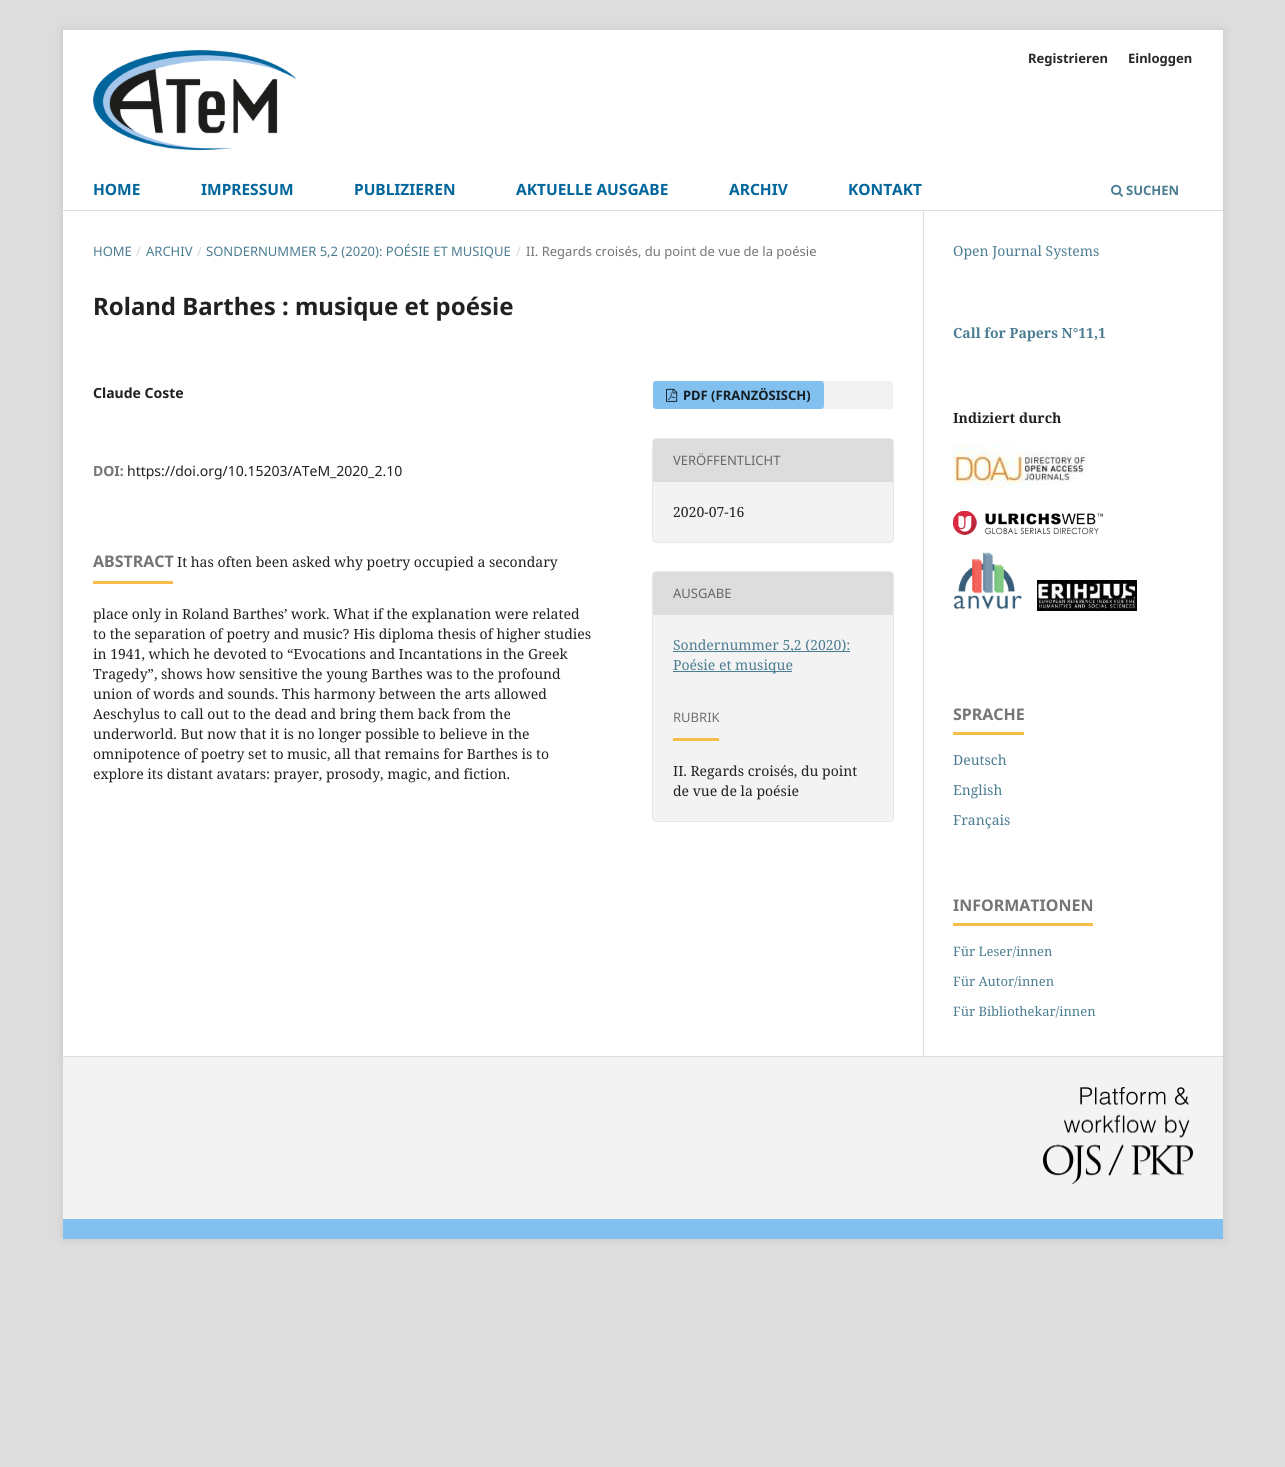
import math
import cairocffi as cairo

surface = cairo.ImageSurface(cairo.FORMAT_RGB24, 1285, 1467)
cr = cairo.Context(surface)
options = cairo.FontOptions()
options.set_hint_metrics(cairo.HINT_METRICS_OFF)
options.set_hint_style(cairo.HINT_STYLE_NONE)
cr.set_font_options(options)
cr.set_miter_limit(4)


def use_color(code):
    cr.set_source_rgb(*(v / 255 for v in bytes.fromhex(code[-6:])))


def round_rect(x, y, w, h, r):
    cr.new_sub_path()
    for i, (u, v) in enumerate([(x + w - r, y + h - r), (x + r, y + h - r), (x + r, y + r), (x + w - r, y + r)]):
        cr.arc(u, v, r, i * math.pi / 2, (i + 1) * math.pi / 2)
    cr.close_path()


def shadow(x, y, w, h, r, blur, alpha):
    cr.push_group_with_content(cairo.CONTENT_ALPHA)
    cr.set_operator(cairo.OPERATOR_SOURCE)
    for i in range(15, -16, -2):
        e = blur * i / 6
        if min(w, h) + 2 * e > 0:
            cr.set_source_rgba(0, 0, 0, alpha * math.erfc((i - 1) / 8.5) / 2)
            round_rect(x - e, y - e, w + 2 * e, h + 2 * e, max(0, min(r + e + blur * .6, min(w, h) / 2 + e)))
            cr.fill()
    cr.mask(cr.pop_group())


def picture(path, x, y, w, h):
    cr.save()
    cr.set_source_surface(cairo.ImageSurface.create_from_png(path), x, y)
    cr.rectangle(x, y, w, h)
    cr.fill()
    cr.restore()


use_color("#dddddd")
cr.paint()
use_color("#000000")
shadow(63, 30, 1160, 1209, 0, 5, 0.1)
use_color("#ffffff")
cr.rectangle(63, 30, 1160, 1026)
cr.fill()
use_color("#dddddd")
cr.rectangle(63, 210, 1160, 1)
cr.fill()
picture("img1.png", 93, 50, 204, 100)
cr.select_font_face("Noto Sans", cairo.FONT_SLANT_NORMAL, cairo.FONT_WEIGHT_BOLD)
cr.set_font_size(13)
use_color("#292929")
cr.move_to(1028, 63)
cr.show_text("Registrieren")
cr.move_to(1128, 63)
cr.show_text("Einloggen")
cr.set_font_size(15.5)
use_color("#00669c")
cr.move_to(93, 195)
cr.show_text("HOME")
cr.move_to(201, 195)
cr.show_text("IMPRESSUM")
cr.move_to(354, 195)
cr.show_text("PUBLIZIEREN")
cr.move_to(516, 195)
cr.show_text("AKTUELLE AUSGABE")
cr.move_to(729, 195)
cr.show_text("ARCHIV")
cr.move_to(848, 195)
cr.show_text("KONTAKT")
picture("img2.png", 1111, 184, 12, 13)
cr.set_font_size(13)
use_color("#4b7d92")
cr.move_to(1126, 195)
cr.show_text("SUCHEN")
cr.select_font_face("Noto Sans")
cr.move_to(93, 256)
cr.show_text("HOME")
use_color("#d6d6d6")
cr.move_to(136, 256)
cr.show_text("/")
use_color("#4b7d92")
cr.move_to(146, 256)
cr.show_text("ARCHIV")
use_color("#d6d6d6")
cr.move_to(197, 256)
cr.show_text("/")
use_color("#4b7d92")
cr.move_to(206, 256)
cr.show_text("SONDERNUMMER 5,2 (2020): POÉSIE ET MUSIQUE")
use_color("#d6d6d6")
cr.move_to(516, 256)
cr.show_text("/")
use_color("#757575")
cr.move_to(526, 256)
cr.show_text("II. Regards croisés, du point de vue de la poésie")
cr.select_font_face("Noto Sans", cairo.FONT_SLANT_NORMAL, cairo.FONT_WEIGHT_BOLD)
cr.set_font_size(24)
use_color("#212121")
cr.move_to(93, 315)
cr.show_text("Roland Barthes : musique et poésie")
cr.set_font_size(14)
cr.move_to(93, 398)
cr.show_text("Claude Coste")
use_color("#757575")
cr.move_to(93, 476)
cr.show_text("DOI:")
cr.select_font_face("Noto Sans")
use_color("#212121")
cr.move_to(127, 476)
cr.show_text("https://doi.org/10.15203/ATeM_2020_2.10")
use_color("#f7bc4a")
cr.rectangle(93, 581, 80, 3)
cr.fill()
cr.select_font_face("Noto Sans", cairo.FONT_SLANT_NORMAL, cairo.FONT_WEIGHT_BOLD)
cr.set_font_size(16)
use_color("#757575")
cr.move_to(93, 567)
cr.show_text("ABSTRACT")
cr.select_font_face("Noto Serif")
cr.set_font_size(14)
use_color("#212121")
cr.move_to(177, 567)
cr.show_text("It has often been asked why poetry occupied a secondary")
cr.move_to(93, 619)
cr.show_text("place only in Roland Barthes’ work. What if the explanation were related")
cr.move_to(93, 639)
cr.show_text("to the separation of poetry and music? His diploma thesis of higher studies")
cr.move_to(93, 659)
cr.show_text("in 1941, which he devoted to “Evocations and Incantations in the Greek")
cr.move_to(93, 679)
cr.show_text("Tragedy”, shows how sensitive the young Barthes was to the profound")
cr.move_to(93, 699)
cr.show_text("union of words and sounds. This harmony between the arts allowed")
cr.move_to(93, 719)
cr.show_text("Aeschylus to call out to the dead and bring them back from the")
cr.move_to(93, 739)
cr.show_text("underworld. But now that it is no longer possible to believe in the")
cr.move_to(93, 759)
cr.show_text("omnipotence of poetry set to music, all that remains for Barthes is to")
cr.move_to(93, 779)
cr.show_text("explore its distant avatars: prayer, prosody, magic, and fiction.")
use_color("#f2f2f2")
round_rect(653, 381, 240, 28, 3)
cr.fill()
use_color("#82c0ef")
round_rect(653, 381, 171, 28, 3)
cr.fill()
picture("img3.png", 666, 388, 12, 14)
cr.select_font_face("Noto Sans", cairo.FONT_SLANT_NORMAL, cairo.FONT_WEIGHT_BOLD)
cr.set_font_size(13)
use_color("#151f26")
cr.move_to(683, 400)
cr.show_text("PDF (FRANZÖSISCH)")
cr.save()
cr.set_fill_rule(cairo.FILL_RULE_EVEN_ODD)
cr.new_path()
cr.move_to(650, 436)
cr.line_to(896, 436)
cr.line_to(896, 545)
cr.line_to(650, 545)
cr.close_path()
cr.move_to(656, 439)
cr.line_to(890, 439)
cr.curve_to(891.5, 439, 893, 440.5, 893, 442)
cr.line_to(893, 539)
cr.curve_to(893, 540.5, 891.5, 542, 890, 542)
cr.line_to(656, 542)
cr.curve_to(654.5, 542, 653, 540.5, 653, 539)
cr.line_to(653, 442)
cr.curve_to(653, 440.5, 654.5, 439, 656, 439)
cr.close_path()
cr.clip()
use_color("#000000")
shadow(653, 439, 240, 103, 3, 0.5, 0.4)
cr.restore()
cr.set_source_rgba(0, 0, 0, 0.05)
cr.rectangle(653, 439, 240, 103)
cr.fill()
use_color("#dddddd")
cr.new_path()
cr.move_to(656, 439)
cr.line_to(890, 439)
cr.curve_to(891.5, 439, 893, 440.5, 893, 442)
cr.line_to(893, 482)
cr.line_to(653, 482)
cr.line_to(653, 442)
cr.curve_to(653, 440.5, 654.5, 439, 656, 439)
cr.close_path()
cr.fill()
cr.select_font_face("Noto Sans")
use_color("#666666")
cr.move_to(673, 465)
cr.show_text("VERÖFFENTLICHT")
cr.select_font_face("Noto Serif")
cr.set_font_size(14)
use_color("#212121")
cr.move_to(673, 517)
cr.show_text("2020-07-16")
cr.save()
cr.set_fill_rule(cairo.FILL_RULE_EVEN_ODD)
cr.new_path()
cr.move_to(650, 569)
cr.line_to(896, 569)
cr.line_to(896, 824)
cr.line_to(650, 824)
cr.close_path()
cr.move_to(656, 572)
cr.line_to(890, 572)
cr.curve_to(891.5, 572, 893, 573.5, 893, 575)
cr.line_to(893, 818)
cr.curve_to(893, 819.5, 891.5, 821, 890, 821)
cr.line_to(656, 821)
cr.curve_to(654.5, 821, 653, 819.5, 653, 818)
cr.line_to(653, 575)
cr.curve_to(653, 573.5, 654.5, 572, 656, 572)
cr.close_path()
cr.clip()
use_color("#000000")
shadow(653, 572, 240, 249, 3, 0.5, 0.4)
cr.restore()
cr.set_source_rgba(0, 0, 0, 0.05)
cr.rectangle(653, 572, 240, 249)
cr.fill()
use_color("#dddddd")
cr.new_path()
cr.move_to(656, 572)
cr.line_to(890, 572)
cr.curve_to(891.5, 572, 893, 573.5, 893, 575)
cr.line_to(893, 615)
cr.line_to(653, 615)
cr.line_to(653, 575)
cr.curve_to(653, 573.5, 654.5, 572, 656, 572)
cr.close_path()
cr.fill()
cr.select_font_face("Noto Sans")
cr.set_font_size(13)
use_color("#666666")
cr.move_to(673, 598)
cr.show_text("AUSGABE")
use_color("#4b7d92")
cr.rectangle(673, 651, 177, 1)
cr.fill()
cr.select_font_face("Noto Serif")
cr.set_font_size(14)
cr.move_to(673, 650)
cr.show_text("Sondernummer 5,2 (2020):")
cr.rectangle(673, 671, 119, 1)
cr.fill()
cr.move_to(673, 670)
cr.show_text("Poésie et musique")
use_color("#f7bc4a")
cr.rectangle(673, 738, 46, 3)
cr.fill()
cr.select_font_face("Noto Sans")
cr.set_font_size(13)
use_color("#6f6f6f")
cr.move_to(673, 722)
cr.show_text("RUBRIK")
cr.select_font_face("Noto Serif")
cr.set_font_size(14)
use_color("#212121")
cr.move_to(673, 776)
cr.show_text("II. Regards croisés, du point")
cr.move_to(673, 796)
cr.show_text("de vue de la poésie")
use_color("#dddddd")
cr.rectangle(923, 211, 1, 845)
cr.fill()
use_color("#4b7d92")
cr.move_to(953, 256)
cr.show_text("Open Journal Systems")
cr.select_font_face("Noto Serif", cairo.FONT_SLANT_NORMAL, cairo.FONT_WEIGHT_BOLD)
cr.move_to(953, 338)
cr.show_text("Call for Papers N°11,1")
use_color("#212121")
cr.move_to(953, 423)
cr.show_text("Indiziert durch")
picture("img4.png", 953, 445, 135, 44)
picture("img5.png", 953, 511, 150, 24)
picture("img6.png", 953, 552, 69, 58)
picture("img7.png", 1037, 580, 100, 31)
use_color("#f7bc4a")
cr.rectangle(953, 732, 71, 3)
cr.fill()
cr.select_font_face("Noto Sans", cairo.FONT_SLANT_NORMAL, cairo.FONT_WEIGHT_BOLD)
cr.set_font_size(16)
use_color("#757575")
cr.move_to(953, 720)
cr.show_text("SPRACHE")
cr.select_font_face("Noto Serif")
cr.set_font_size(14)
use_color("#4b7d92")
cr.move_to(953, 765)
cr.show_text("Deutsch")
cr.move_to(953, 795)
cr.show_text("English")
cr.move_to(953, 825)
cr.show_text("Français")
use_color("#f7bc4a")
cr.rectangle(953, 923, 140, 3)
cr.fill()
cr.select_font_face("Noto Sans", cairo.FONT_SLANT_NORMAL, cairo.FONT_WEIGHT_BOLD)
cr.set_font_size(16)
use_color("#757575")
cr.move_to(953, 911)
cr.show_text("INFORMATIONEN")
cr.select_font_face("Noto Serif")
cr.set_font_size(13)
use_color("#4b7d92")
cr.move_to(953, 956)
cr.show_text("Für Leser/innen")
cr.move_to(953, 986)
cr.show_text("Für Autor/innen")
cr.move_to(953, 1016)
cr.show_text("Für Bibliothekar/innen")
use_color("#f3f3f3")
cr.rectangle(63, 1057, 1160, 162)
cr.fill()
use_color("#dddddd")
cr.rectangle(63, 1056, 1160, 1)
cr.fill()
use_color("#82c0ef")
cr.rectangle(63, 1219, 1160, 20)
cr.fill()
picture("img8.png", 1043, 1087, 150, 97)
surface.write_to_png("result.png")
